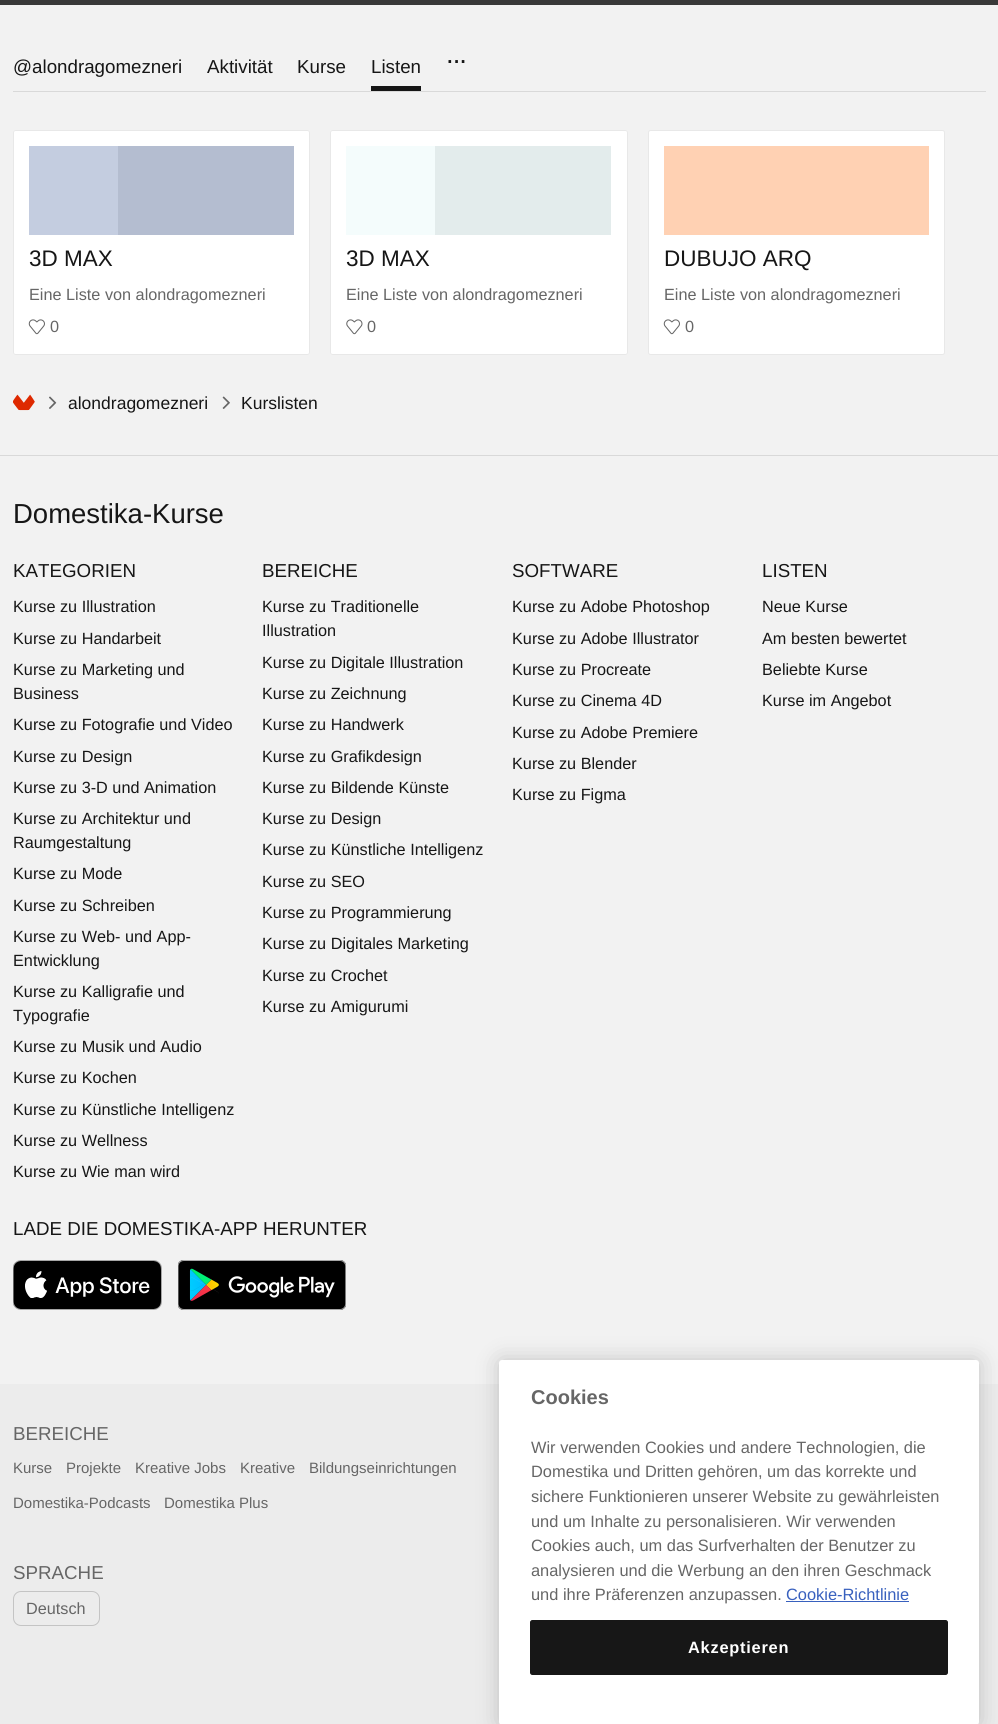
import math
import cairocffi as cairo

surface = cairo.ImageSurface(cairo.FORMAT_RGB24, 998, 1724)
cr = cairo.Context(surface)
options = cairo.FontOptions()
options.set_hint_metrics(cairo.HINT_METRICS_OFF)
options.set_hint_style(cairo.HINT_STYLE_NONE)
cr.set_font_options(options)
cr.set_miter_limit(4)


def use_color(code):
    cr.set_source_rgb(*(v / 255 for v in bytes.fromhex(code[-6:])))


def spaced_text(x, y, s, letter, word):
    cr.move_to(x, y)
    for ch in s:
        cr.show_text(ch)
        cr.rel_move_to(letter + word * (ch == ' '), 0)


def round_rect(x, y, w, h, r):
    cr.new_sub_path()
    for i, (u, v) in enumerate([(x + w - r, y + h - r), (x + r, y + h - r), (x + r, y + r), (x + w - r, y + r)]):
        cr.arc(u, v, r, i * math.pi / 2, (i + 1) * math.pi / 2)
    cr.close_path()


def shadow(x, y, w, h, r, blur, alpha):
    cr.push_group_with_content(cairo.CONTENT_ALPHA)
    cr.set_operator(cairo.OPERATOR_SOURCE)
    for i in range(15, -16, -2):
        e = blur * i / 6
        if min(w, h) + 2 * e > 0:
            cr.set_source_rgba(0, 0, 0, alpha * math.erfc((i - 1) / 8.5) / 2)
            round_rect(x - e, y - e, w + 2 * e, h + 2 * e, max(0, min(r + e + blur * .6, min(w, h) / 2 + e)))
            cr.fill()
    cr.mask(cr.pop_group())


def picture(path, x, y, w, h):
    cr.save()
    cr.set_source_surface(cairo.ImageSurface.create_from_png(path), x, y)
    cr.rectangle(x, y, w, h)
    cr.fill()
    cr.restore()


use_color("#f2f2f2")
cr.paint()
use_color("#393939")
cr.rectangle(0, 0, 998, 5)
cr.fill()
use_color("#d9d9d9")
cr.rectangle(13, 91, 973, 1)
cr.fill()
cr.select_font_face("Liberation Sans")
cr.set_font_size(18.75)
use_color("#161616")
cr.move_to(13, 73)
cr.show_text("@alondragomezneri")
cr.move_to(207, 73)
cr.show_text("Aktivität")
cr.move_to(297, 73)
cr.show_text("Kurse")
cr.rectangle(371, 86, 50, 5)
cr.fill()
cr.move_to(371, 73)
cr.show_text("Listen")
cr.set_font_size(27.5)
spaced_text(446, 63, "...", -1, 0)
use_color("#ffffff")
round_rect(13, 130, 297, 225, 2.5)
cr.fill()
use_color("#c4cde0")
cr.rectangle(29, 146, 89, 89)
cr.fill()
round_rect(13.5, 130.5, 296, 224, 2)
use_color("#e8e8e8")
cr.set_line_width(1)
cr.stroke()
use_color("#b4bdd0")
cr.rectangle(118, 146, 176, 89)
cr.fill()
cr.set_font_size(22.5)
use_color("#161616")
cr.move_to(29, 266)
cr.show_text("3D MAX")
cr.set_font_size(16.25)
use_color("#666666")
cr.move_to(29, 300)
cr.show_text("Eine Liste von alondragomezneri")
picture("img1.png", 28, 319, 17, 16)
cr.move_to(50, 332)
cr.show_text("0")
use_color("#ffffff")
round_rect(330, 130, 298, 225, 2.5)
cr.fill()
use_color("#f4fcfc")
cr.rectangle(346, 146, 89, 89)
cr.fill()
round_rect(330.5, 130.5, 297, 224, 2)
use_color("#e8e8e8")
cr.stroke()
use_color("#e3ecec")
cr.rectangle(435, 146, 176, 89)
cr.fill()
cr.set_font_size(22.5)
use_color("#161616")
cr.move_to(346, 266)
cr.show_text("3D MAX")
cr.set_font_size(16.25)
use_color("#666666")
cr.move_to(346, 300)
cr.show_text("Eine Liste von alondragomezneri")
picture("img2.png", 346, 319, 17, 16)
cr.move_to(367, 332)
cr.show_text("0")
use_color("#ffffff")
round_rect(648.5, 130.5, 296, 224, 2)
cr.fill_preserve()
use_color("#e8e8e8")
cr.stroke()
use_color("#ffd1b3")
cr.rectangle(664, 146, 265, 89)
cr.fill()
cr.set_font_size(22.5)
use_color("#161616")
cr.move_to(664, 266)
cr.show_text("DUBUJO ARQ")
cr.set_font_size(16.25)
use_color("#666666")
cr.move_to(664, 300)
cr.show_text("Eine Liste von alondragomezneri")
picture("img1.png", 663, 319, 17, 16)
cr.move_to(685, 332)
cr.show_text("0")
picture("img3.png", 13, 394, 22, 17)
picture("img4.png", 49, 396, 8, 13)
cr.set_font_size(17.5)
use_color("#161616")
cr.move_to(68, 409)
cr.show_text("alondragomezneri")
picture("img5.png", 222, 396, 8, 13)
cr.move_to(241, 409)
cr.show_text("Kurslisten")
use_color("#d9d9d9")
cr.rectangle(0, 455, 998, 1)
cr.fill()
cr.set_font_size(27.5)
use_color("#161616")
cr.move_to(13, 523)
cr.show_text("Domestika-Kurse")
cr.set_font_size(18.75)
cr.move_to(13, 577)
cr.show_text("KATEGORIEN")
cr.set_font_size(16.25)
cr.move_to(13, 612)
cr.show_text("Kurse zu Illustration")
cr.move_to(13, 644)
cr.show_text("Kurse zu Handarbeit")
cr.move_to(13, 675)
cr.show_text("Kurse zu Marketing und")
cr.move_to(13, 699)
cr.show_text("Business")
cr.move_to(13, 730)
cr.show_text("Kurse zu Fotografie und Video")
cr.move_to(13, 762)
cr.show_text("Kurse zu Design")
cr.move_to(13, 793)
cr.show_text("Kurse zu 3-D und Animation")
cr.move_to(13, 824)
cr.show_text("Kurse zu Architektur und")
cr.move_to(13, 848)
cr.show_text("Raumgestaltung")
cr.move_to(13, 879)
cr.show_text("Kurse zu Mode")
cr.move_to(13, 911)
cr.show_text("Kurse zu Schreiben")
cr.move_to(13, 942)
cr.show_text("Kurse zu Web- und App-")
cr.move_to(13, 966)
cr.show_text("Entwicklung")
cr.move_to(13, 997)
cr.show_text("Kurse zu Kalligrafie und")
cr.move_to(13, 1021)
cr.show_text("Typografie")
cr.move_to(13, 1052)
cr.show_text("Kurse zu Musik und Audio")
cr.move_to(13, 1083)
cr.show_text("Kurse zu Kochen")
cr.move_to(13, 1115)
cr.show_text("Kurse zu Künstliche Intelligenz")
cr.move_to(13, 1146)
cr.show_text("Kurse zu Wellness")
cr.move_to(13, 1177)
cr.show_text("Kurse zu Wie man wird")
cr.set_font_size(18.75)
cr.move_to(262, 577)
cr.show_text("BEREICHE")
cr.set_font_size(16.25)
cr.move_to(262, 612)
cr.show_text("Kurse zu Traditionelle")
cr.move_to(262, 636)
cr.show_text("Illustration")
cr.move_to(262, 668)
cr.show_text("Kurse zu Digitale Illustration")
cr.move_to(262, 699)
cr.show_text("Kurse zu Zeichnung")
cr.move_to(262, 730)
cr.show_text("Kurse zu Handwerk")
cr.move_to(262, 762)
cr.show_text("Kurse zu Grafikdesign")
cr.move_to(262, 793)
cr.show_text("Kurse zu Bildende Künste")
cr.move_to(262, 824)
cr.show_text("Kurse zu Design")
cr.move_to(262, 855)
cr.show_text("Kurse zu Künstliche Intelligenz")
cr.move_to(262, 887)
cr.show_text("Kurse zu SEO")
cr.move_to(262, 918)
cr.show_text("Kurse zu Programmierung")
cr.move_to(262, 949)
cr.show_text("Kurse zu Digitales Marketing")
cr.move_to(262, 981)
cr.show_text("Kurse zu Crochet")
cr.move_to(262, 1012)
cr.show_text("Kurse zu Amigurumi")
cr.set_font_size(18.75)
cr.move_to(512, 577)
cr.show_text("SOFTWARE")
cr.set_font_size(16.25)
cr.move_to(512, 612)
cr.show_text("Kurse zu Adobe Photoshop")
cr.move_to(512, 644)
cr.show_text("Kurse zu Adobe Illustrator")
cr.move_to(512, 675)
cr.show_text("Kurse zu Procreate")
cr.move_to(512, 706)
cr.show_text("Kurse zu Cinema 4D")
cr.move_to(512, 738)
cr.show_text("Kurse zu Adobe Premiere")
cr.move_to(512, 769)
cr.show_text("Kurse zu Blender")
cr.move_to(512, 800)
cr.show_text("Kurse zu Figma")
cr.set_font_size(18.75)
cr.move_to(762, 577)
cr.show_text("LISTEN")
cr.set_font_size(16.25)
cr.move_to(762, 612)
cr.show_text("Neue Kurse")
cr.move_to(762, 644)
cr.show_text("Am besten bewertet")
cr.move_to(762, 675)
cr.show_text("Beliebte Kurse")
cr.move_to(762, 706)
cr.show_text("Kurse im Angebot")
cr.set_font_size(18.75)
cr.move_to(13, 1235)
cr.show_text("LADE DIE DOMESTIKA-APP HERUNTER")
picture("img6.png", 13, 1260, 149, 50)
picture("img7.png", 178, 1260, 168, 50)
use_color("#ececec")
cr.rectangle(0, 1384, 998, 340)
cr.fill()
use_color("#666666")
cr.move_to(13, 1440)
cr.show_text("BEREICHE")
cr.set_font_size(15)
cr.move_to(13, 1473)
cr.show_text("Kurse")
cr.move_to(66, 1473)
cr.show_text("Projekte")
cr.move_to(135, 1473)
cr.show_text("Kreative Jobs")
cr.move_to(240, 1473)
cr.show_text("Kreative")
cr.move_to(309, 1473)
cr.show_text("Bildungseinrichtungen")
cr.move_to(13, 1508)
cr.show_text("Domestika-Podcasts")
cr.move_to(164, 1508)
cr.show_text("Domestika Plus")
cr.set_font_size(18.75)
cr.move_to(13, 1579)
cr.show_text("SPRACHE")
round_rect(13.5, 1591.5, 86, 34, 7.5)
use_color("#c4c4c4")
cr.stroke()
cr.set_font_size(16.25)
use_color("#666666")
cr.move_to(26, 1614)
cr.show_text("Deutsch")
use_color("#000000")
shadow(499, 1360, 480, 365, 3, 11, 0.2)
use_color("#ffffff")
round_rect(499, 1360, 480, 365, 3)
cr.fill()
cr.select_font_face("Liberation Sans", cairo.FONT_SLANT_NORMAL, cairo.FONT_WEIGHT_BOLD)
cr.set_font_size(20)
use_color("#666666")
cr.move_to(531, 1404)
cr.show_text("Cookies")
cr.select_font_face("Liberation Sans")
cr.set_font_size(16.4)
cr.move_to(531, 1453)
cr.show_text("Wir verwenden Cookies und andere Technologien, die")
cr.move_to(531, 1477)
cr.show_text("Domestika und Dritten gehören, um das korrekte und")
cr.move_to(531, 1502)
cr.show_text("sichere Funktionieren unserer Website zu gewährleisten")
cr.move_to(531, 1527)
cr.show_text("und um Inhalte zu personalisieren. Wir verwenden")
cr.move_to(531, 1551)
cr.show_text("Cookies auch, um das Surfverhalten der Benutzer zu")
cr.move_to(531, 1576)
cr.show_text("analysieren und die Werbung an den ihren Geschmack")
cr.move_to(531, 1600)
cr.show_text("und ihre Präferenzen anzupassen.")
use_color("#3860be")
cr.move_to(786, 1600)
cr.show_text("Cookie-Richtlinie")
cr.rectangle(786, 1601, 123, 1)
cr.fill()
use_color("#171717")
round_rect(530.5, 1620.5, 417, 54, 2)
cr.fill_preserve()
cr.stroke()
cr.select_font_face("Liberation Sans", cairo.FONT_SLANT_NORMAL, cairo.FONT_WEIGHT_BOLD)
use_color("#ffffff")
spaced_text(688, 1653, "Akzeptieren", 0.75, 0)
surface.write_to_png("result.png")
